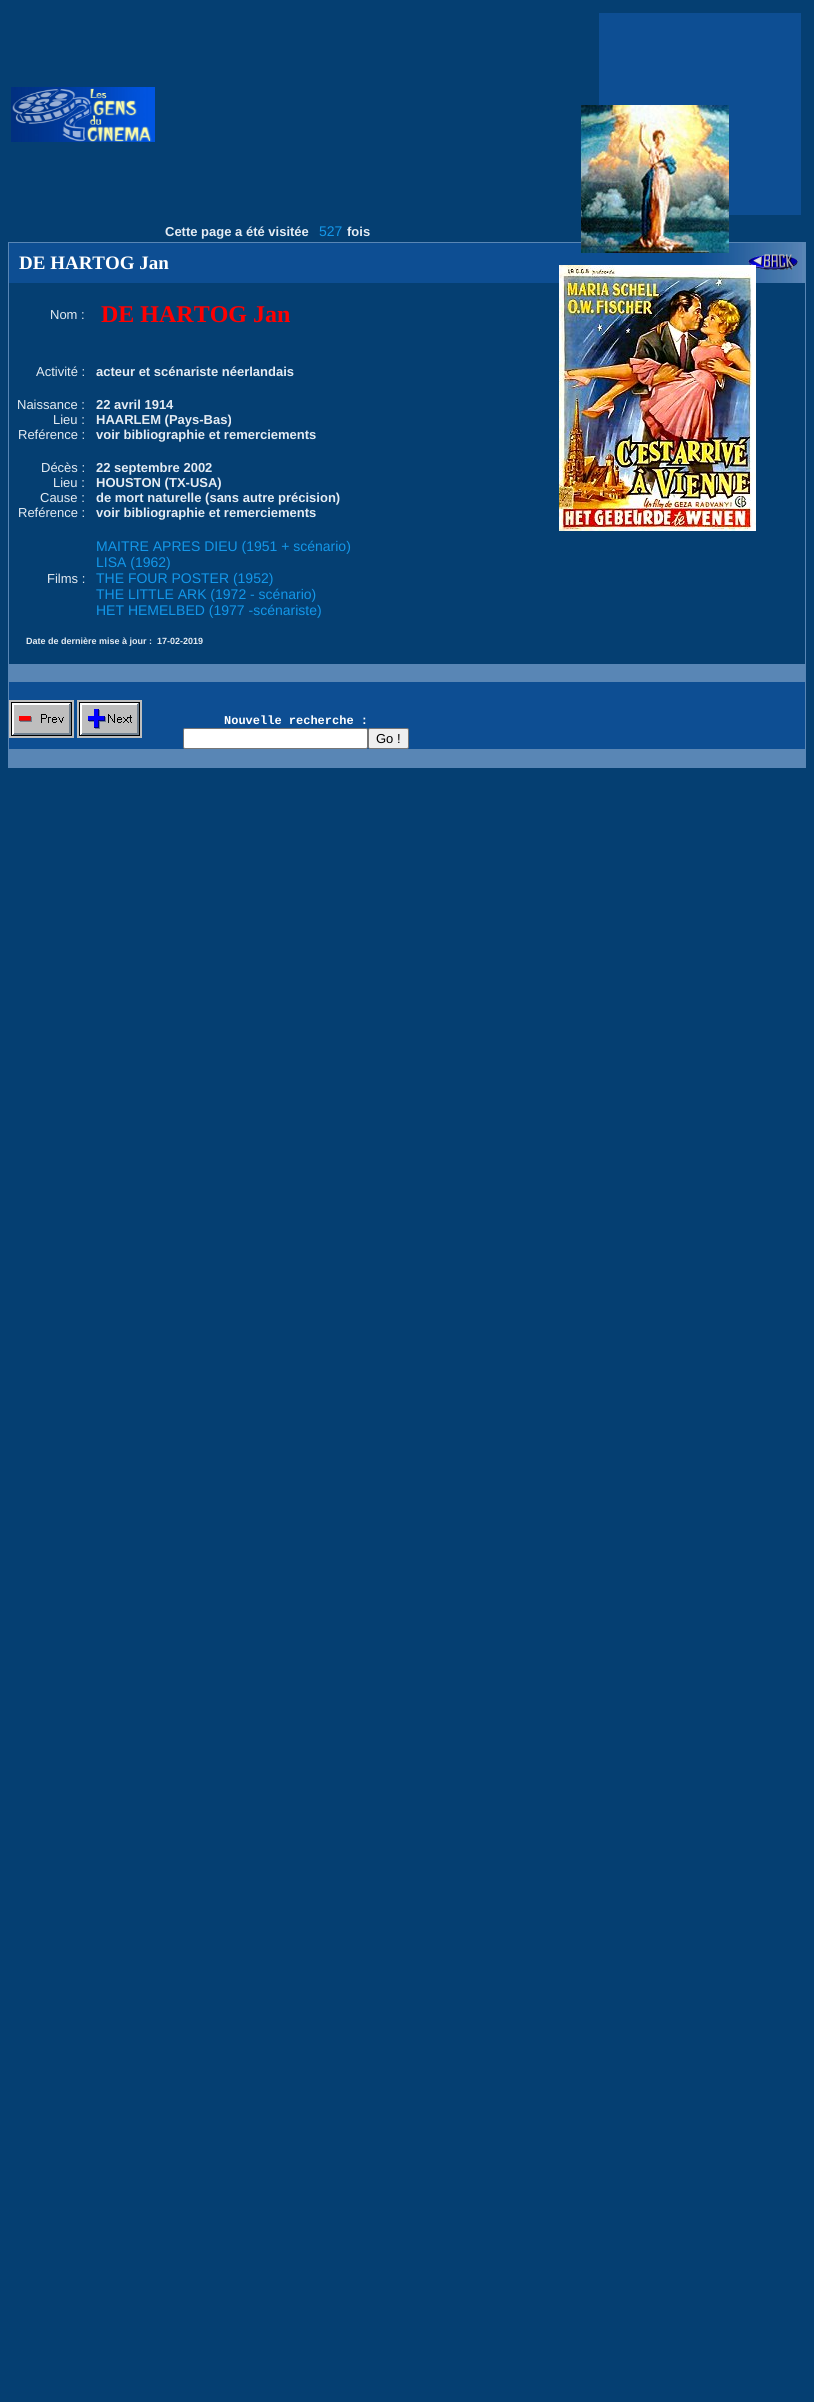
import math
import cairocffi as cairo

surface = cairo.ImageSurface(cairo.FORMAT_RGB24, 814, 2402)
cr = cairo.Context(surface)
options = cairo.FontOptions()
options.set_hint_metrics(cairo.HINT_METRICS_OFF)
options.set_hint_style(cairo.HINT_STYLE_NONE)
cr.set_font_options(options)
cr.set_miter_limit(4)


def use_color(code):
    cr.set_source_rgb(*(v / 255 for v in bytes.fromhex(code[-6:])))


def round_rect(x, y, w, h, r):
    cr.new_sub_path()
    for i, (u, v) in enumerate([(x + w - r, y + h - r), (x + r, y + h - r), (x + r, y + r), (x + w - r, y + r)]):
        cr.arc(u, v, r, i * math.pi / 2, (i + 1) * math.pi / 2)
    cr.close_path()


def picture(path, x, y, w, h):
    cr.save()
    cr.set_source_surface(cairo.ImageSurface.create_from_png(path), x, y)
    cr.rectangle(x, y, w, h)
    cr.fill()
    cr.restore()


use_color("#053f72")
cr.paint()
picture("img1.png", 11, 87, 144, 55)
use_color("#0d4e93")
cr.rectangle(599, 13, 202, 202)
cr.fill()
cr.select_font_face("Liberation Sans", cairo.FONT_SLANT_NORMAL, cairo.FONT_WEIGHT_BOLD)
cr.set_font_size(13)
use_color("#e5ecf3")
cr.move_to(165, 236)
cr.show_text("Cette page a été visitée")
cr.select_font_face("Liberation Sans")
cr.set_font_size(14)
use_color("#1397e9")
cr.move_to(319, 236)
cr.show_text("527")
cr.select_font_face("Liberation Sans", cairo.FONT_SLANT_NORMAL, cairo.FONT_WEIGHT_BOLD)
cr.set_font_size(13)
use_color("#e5ecf3")
cr.move_to(347, 236)
cr.show_text("fois")
use_color("#5986b5")
cr.rectangle(8, 242, 798, 526)
cr.fill()
use_color("#0d4e93")
cr.rectangle(9, 243, 629, 40)
cr.fill()
cr.select_font_face("Liberation Serif", cairo.FONT_SLANT_NORMAL, cairo.FONT_WEIGHT_BOLD)
cr.set_font_size(19)
use_color("#ffffff")
cr.move_to(19, 269)
cr.show_text("DE HARTOG Jan")
picture("img2.png", 638, 243, 164, 40)
picture("img3.png", 748, 254, 50, 16)
picture("img4.png", 581, 105, 148, 148)
use_color("#053f72")
cr.rectangle(9, 283, 796, 381)
cr.fill()
cr.select_font_face("Liberation Sans")
cr.set_font_size(13)
use_color("#e5ecf3")
cr.move_to(50, 319)
cr.show_text("Nom :")
cr.select_font_face("Liberation Serif", cairo.FONT_SLANT_NORMAL, cairo.FONT_WEIGHT_BOLD)
cr.set_font_size(24)
use_color("#ff0000")
cr.move_to(101, 322)
cr.show_text("DE HARTOG Jan")
cr.select_font_face("Liberation Sans")
cr.set_font_size(13)
use_color("#e5ecf3")
cr.move_to(36, 376)
cr.show_text("Activité :")
cr.select_font_face("Liberation Sans", cairo.FONT_SLANT_NORMAL, cairo.FONT_WEIGHT_BOLD)
cr.move_to(96, 376)
cr.show_text("acteur et scénariste néerlandais")
cr.select_font_face("Liberation Sans")
cr.move_to(17, 409)
cr.show_text("Naissance :")
cr.select_font_face("Liberation Sans", cairo.FONT_SLANT_NORMAL, cairo.FONT_WEIGHT_BOLD)
cr.move_to(96, 409)
cr.show_text("22 avril 1914")
cr.select_font_face("Liberation Sans")
cr.move_to(53, 424)
cr.show_text("Lieu :")
cr.select_font_face("Liberation Sans", cairo.FONT_SLANT_NORMAL, cairo.FONT_WEIGHT_BOLD)
cr.move_to(96, 424)
cr.show_text("HAARLEM (Pays-Bas)")
picture("img5.png", 559, 265, 197, 266)
cr.select_font_face("Liberation Sans")
cr.move_to(18, 439)
cr.show_text("Reférence :")
cr.select_font_face("Liberation Sans", cairo.FONT_SLANT_NORMAL, cairo.FONT_WEIGHT_BOLD)
cr.move_to(96, 439)
cr.show_text("voir bibliographie et remerciements")
cr.select_font_face("Liberation Sans")
cr.move_to(41, 472)
cr.show_text("Décès :")
cr.select_font_face("Liberation Sans", cairo.FONT_SLANT_NORMAL, cairo.FONT_WEIGHT_BOLD)
cr.move_to(96, 472)
cr.show_text("22 septembre 2002")
cr.select_font_face("Liberation Sans")
cr.move_to(53, 487)
cr.show_text("Lieu :")
cr.select_font_face("Liberation Sans", cairo.FONT_SLANT_NORMAL, cairo.FONT_WEIGHT_BOLD)
cr.move_to(96, 487)
cr.show_text("HOUSTON (TX-USA)")
cr.select_font_face("Liberation Sans")
cr.move_to(40, 502)
cr.show_text("Cause :")
cr.select_font_face("Liberation Sans", cairo.FONT_SLANT_NORMAL, cairo.FONT_WEIGHT_BOLD)
cr.move_to(96, 502)
cr.show_text("de mort naturelle (sans autre précision)")
cr.select_font_face("Liberation Sans")
cr.move_to(18, 517)
cr.show_text("Reférence :")
cr.select_font_face("Liberation Sans", cairo.FONT_SLANT_NORMAL, cairo.FONT_WEIGHT_BOLD)
cr.move_to(96, 517)
cr.show_text("voir bibliographie et remerciements")
cr.select_font_face("Liberation Sans")
cr.move_to(47, 583)
cr.show_text("Films :")
cr.set_font_size(14)
use_color("#1397e9")
cr.move_to(96, 551)
cr.show_text("MAITRE APRES DIEU (1951 + scénario)")
cr.move_to(96, 567)
cr.show_text("LISA (1962)")
cr.move_to(96, 583)
cr.show_text("THE FOUR POSTER (1952)")
cr.move_to(96, 599)
cr.show_text("THE LITTLE ARK (1972 - scénario)")
cr.move_to(96, 615)
cr.show_text("HET HEMELBED (1977 -scénariste)")
cr.select_font_face("Liberation Sans", cairo.FONT_SLANT_NORMAL, cairo.FONT_WEIGHT_BOLD)
cr.set_font_size(9)
use_color("#e5ecf3")
cr.move_to(26, 644)
cr.show_text("Date de dernière mise à jour :")
cr.move_to(157, 644)
cr.show_text("17-02-2019")
use_color("#0d4e93")
cr.rectangle(9, 682, 796, 18)
cr.fill()
cr.rectangle(9, 700, 796, 49)
cr.fill()
picture("img6.png", 9, 700, 65, 38)
picture("img7.png", 77, 700, 65, 38)
cr.select_font_face("Liberation Mono", cairo.FONT_SLANT_NORMAL, cairo.FONT_WEIGHT_BOLD)
cr.set_font_size(12)
use_color("#ffffff")
cr.move_to(224, 724)
cr.show_text("Nouvelle recherche :")
round_rect(183.5, 728.5, 184, 20, 1.5)
cr.fill_preserve()
use_color("#767676")
cr.set_line_width(1)
cr.stroke()
use_color("#efefef")
round_rect(368.5, 728.5, 40, 20, 1.5)
cr.fill_preserve()
use_color("#767676")
cr.stroke()
cr.select_font_face("Liberation Sans")
cr.set_font_size(13)
use_color("#000000")
cr.move_to(376, 743)
cr.show_text("Go !")
surface.write_to_png("result.png")
